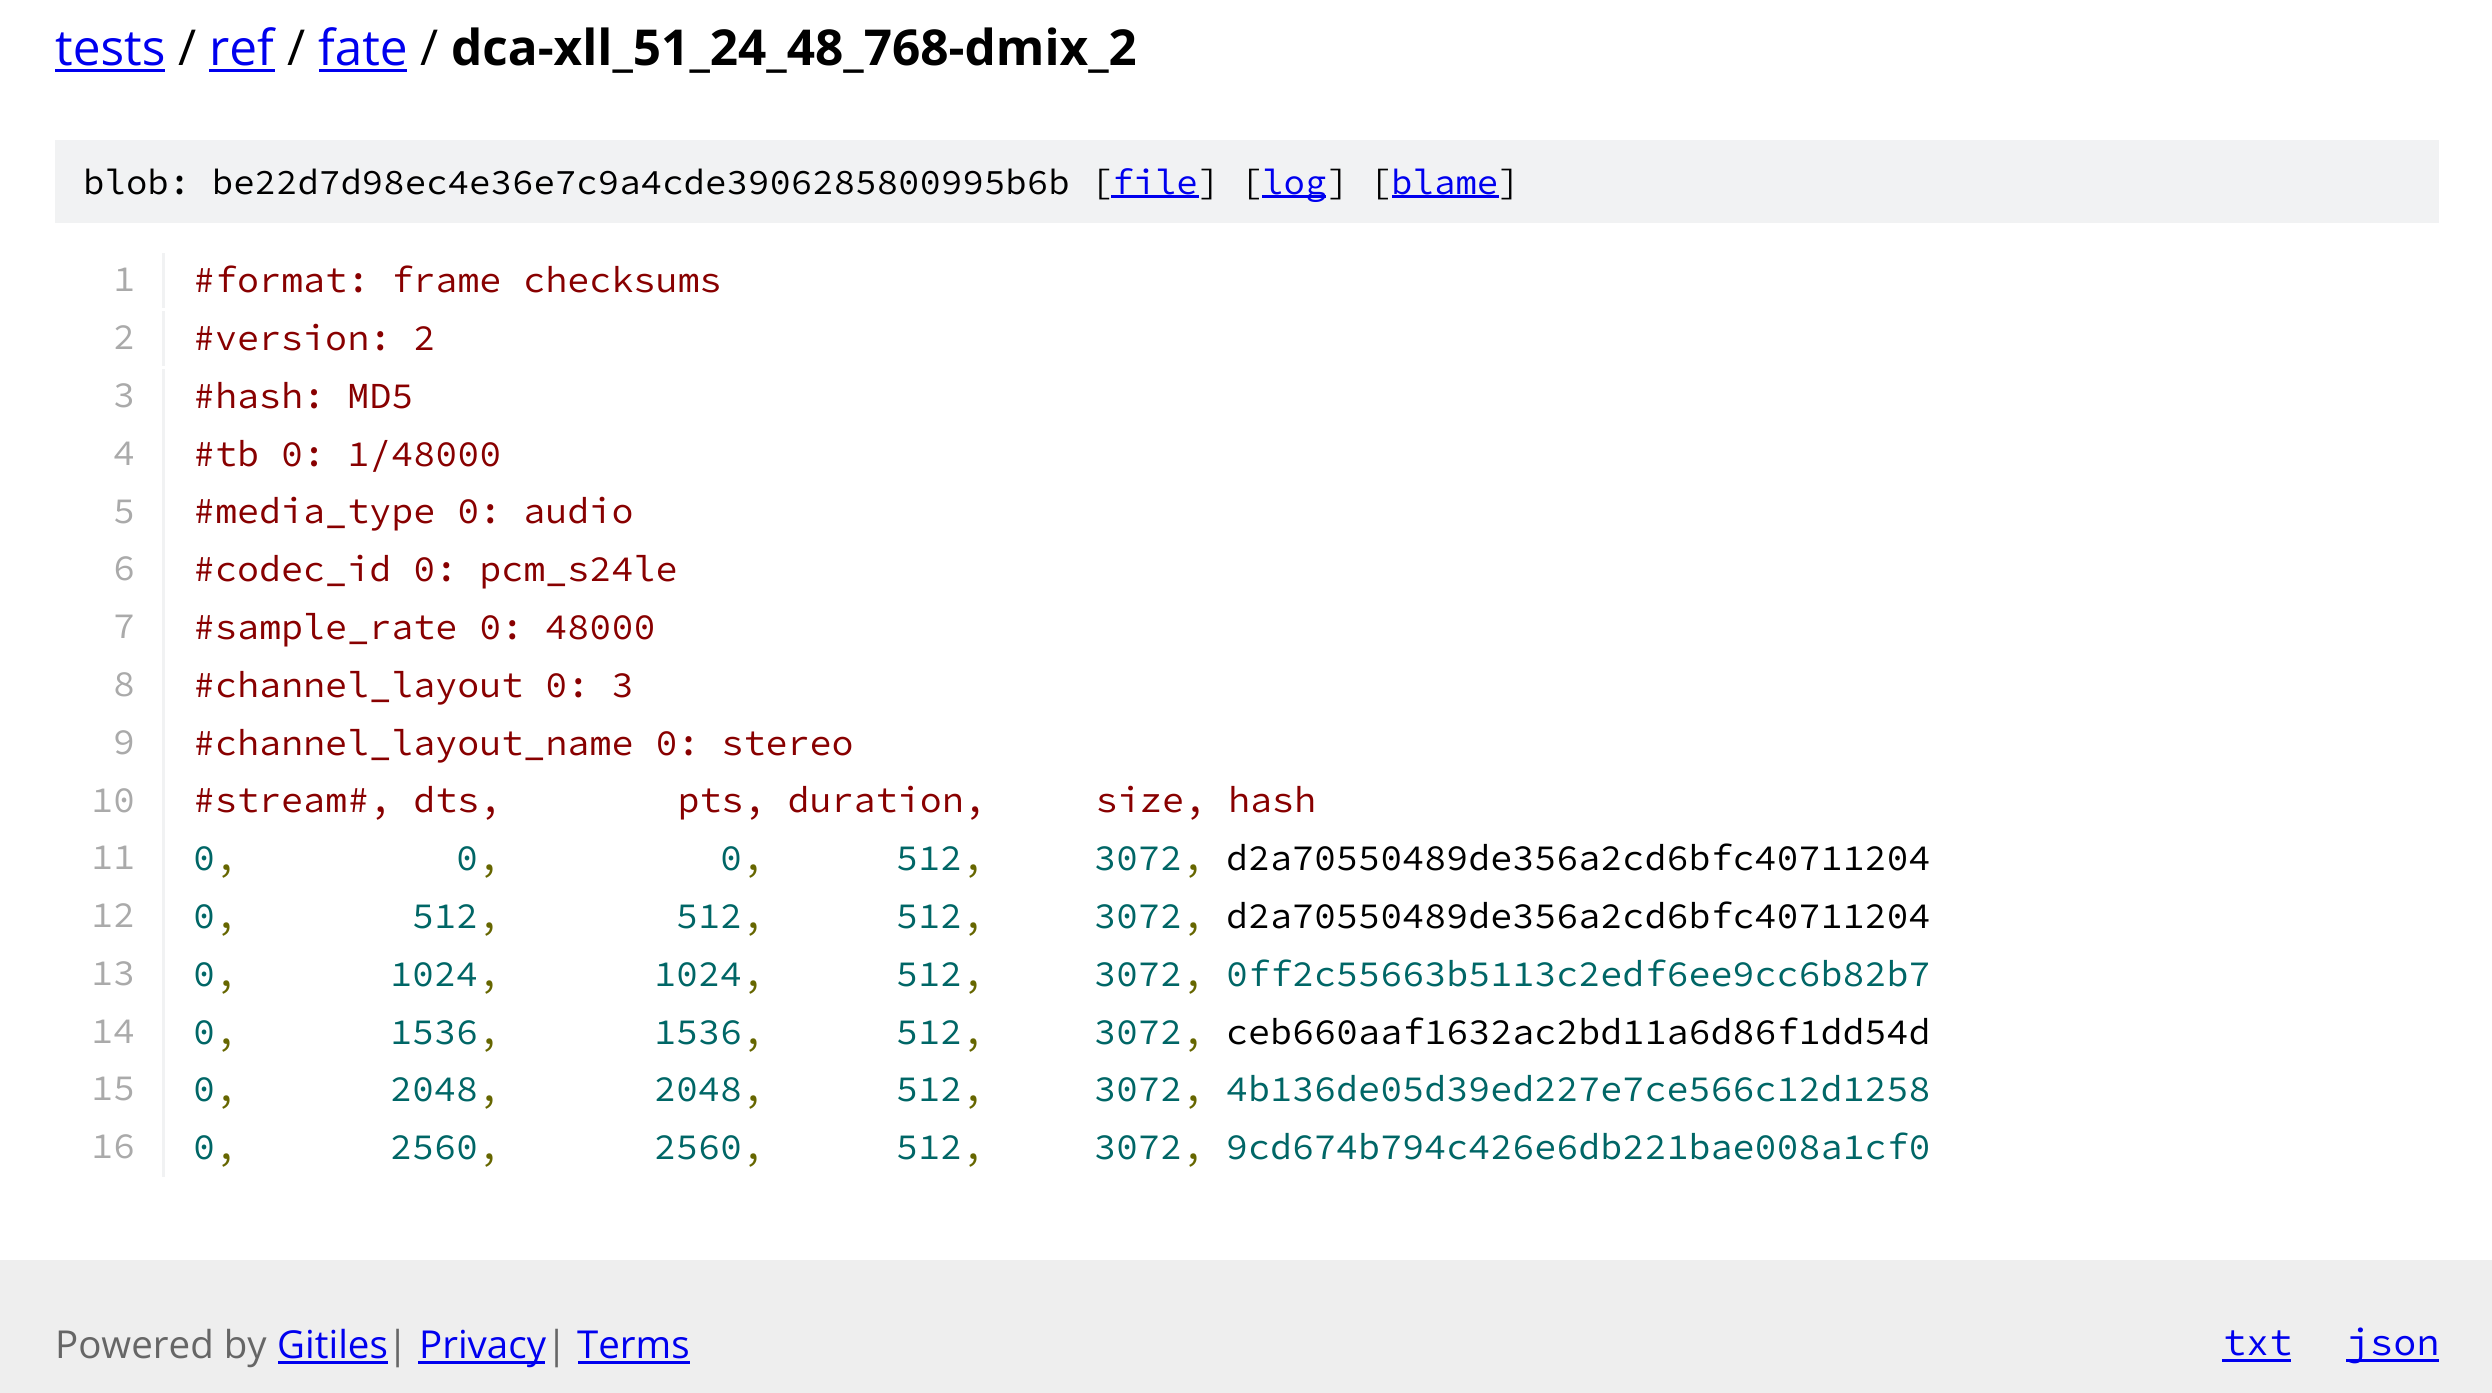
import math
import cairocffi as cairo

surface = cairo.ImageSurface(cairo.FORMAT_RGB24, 2492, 1393)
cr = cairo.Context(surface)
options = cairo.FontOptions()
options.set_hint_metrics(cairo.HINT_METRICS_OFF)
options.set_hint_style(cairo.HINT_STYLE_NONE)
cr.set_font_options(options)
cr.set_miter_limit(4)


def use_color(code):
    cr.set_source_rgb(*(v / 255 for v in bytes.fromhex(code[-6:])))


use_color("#ffffff")
cr.paint()
cr.select_font_face("Open Sans")
cr.set_font_size(49.5)
use_color("#0000ee")
cr.move_to(55, 65)
cr.show_text("tests")
cr.rectangle(55, 69, 110, 3)
cr.fill()
use_color("#000000")
cr.move_to(178, 65)
cr.show_text("/")
use_color("#0000ee")
cr.move_to(209, 65)
cr.show_text("ref")
cr.rectangle(209, 69, 66, 3)
cr.fill()
use_color("#000000")
cr.move_to(287, 65)
cr.show_text("/")
use_color("#0000ee")
cr.move_to(318, 65)
cr.show_text("fate")
cr.rectangle(319, 69, 88, 3)
cr.fill()
use_color("#000000")
cr.move_to(420, 65)
cr.show_text("/")
cr.select_font_face("Open Sans", cairo.FONT_SLANT_NORMAL, cairo.FONT_WEIGHT_BOLD)
cr.move_to(451, 65)
cr.show_text("dca-xll_51_24_48_768-dmix_2")
use_color("#f1f2f3")
cr.rectangle(55, 140, 2384, 83)
cr.fill()
cr.select_font_face("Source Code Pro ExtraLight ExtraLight")
cr.set_font_size(35.75)
use_color("#000000")
cr.move_to(83, 194)
cr.show_text("blob: be22d7d98ec4e36e7c9a4cde3906285800995b6b [")
use_color("#0000ee")
cr.move_to(1112, 194)
cr.show_text("file")
cr.rectangle(1111, 195, 88, 3)
cr.fill()
use_color("#000000")
cr.move_to(1198, 194)
cr.show_text("] [")
use_color("#0000ee")
cr.rectangle(1262, 195, 64, 3)
cr.fill()
cr.move_to(1262, 194)
cr.show_text("log")
use_color("#000000")
cr.move_to(1327, 194)
cr.show_text("] [")
use_color("#0000ee")
cr.move_to(1391, 194)
cr.show_text("blame")
cr.rectangle(1392, 195, 107, 3)
cr.fill()
use_color("#000000")
cr.move_to(1498, 194)
cr.show_text("]")
use_color("#f1f2f3")
cr.rectangle(162, 253, 3, 55)
cr.fill()
cr.set_font_size(36.7)
use_color("#aaaaaa")
cr.move_to(113, 291)
cr.show_text("1")
use_color("#880000")
cr.move_to(193, 292)
cr.show_text("#format: frame checksums")
use_color("#f1f2f3")
cr.rectangle(162, 311, 3, 55)
cr.fill()
use_color("#aaaaaa")
cr.move_to(113, 349)
cr.show_text("2")
use_color("#880000")
cr.move_to(193, 350)
cr.show_text("#version: 2")
use_color("#f1f2f3")
cr.rectangle(162, 369, 3, 808)
cr.fill()
use_color("#aaaaaa")
cr.move_to(113, 407)
cr.show_text("3")
use_color("#880000")
cr.move_to(193, 408)
cr.show_text("#hash: MD5")
use_color("#aaaaaa")
cr.move_to(113, 465)
cr.show_text("4")
use_color("#880000")
cr.move_to(193, 466)
cr.show_text("#tb 0: 1/48000")
use_color("#aaaaaa")
cr.move_to(113, 523)
cr.show_text("5")
use_color("#880000")
cr.move_to(193, 523)
cr.show_text("#media_type 0: audio")
use_color("#aaaaaa")
cr.move_to(113, 580)
cr.show_text("6")
use_color("#880000")
cr.move_to(193, 581)
cr.show_text("#codec_id 0: pcm_s24le")
use_color("#aaaaaa")
cr.move_to(113, 638)
cr.show_text("7")
use_color("#880000")
cr.move_to(193, 639)
cr.show_text("#sample_rate 0: 48000")
use_color("#aaaaaa")
cr.move_to(113, 696)
cr.show_text("8")
use_color("#880000")
cr.move_to(193, 697)
cr.show_text("#channel_layout 0: 3")
use_color("#aaaaaa")
cr.move_to(113, 754)
cr.show_text("9")
use_color("#880000")
cr.move_to(193, 755)
cr.show_text("#channel_layout_name 0: stereo")
use_color("#aaaaaa")
cr.move_to(91, 812)
cr.show_text("10")
use_color("#880000")
cr.move_to(193, 812)
cr.show_text("#stream#, dts,        pts, duration,     size, hash")
use_color("#aaaaaa")
cr.move_to(91, 869)
cr.show_text("11")
use_color("#006666")
cr.move_to(193, 870)
cr.show_text("0")
use_color("#666600")
cr.move_to(215, 870)
cr.show_text(",")
use_color("#006666")
cr.move_to(456, 870)
cr.show_text("0")
use_color("#666600")
cr.move_to(478, 870)
cr.show_text(",")
use_color("#006666")
cr.move_to(720, 870)
cr.show_text("0")
use_color("#666600")
cr.move_to(742, 870)
cr.show_text(",")
use_color("#006666")
cr.move_to(896, 870)
cr.show_text("512")
use_color("#666600")
cr.move_to(962, 870)
cr.show_text(",")
use_color("#006666")
cr.move_to(1094, 870)
cr.show_text("3072")
use_color("#666600")
cr.move_to(1182, 870)
cr.show_text(",")
use_color("#000000")
cr.move_to(1226, 870)
cr.show_text("d2a70550489de356a2cd6bfc40711204")
use_color("#aaaaaa")
cr.move_to(91, 927)
cr.show_text("12")
use_color("#006666")
cr.move_to(193, 928)
cr.show_text("0")
use_color("#666600")
cr.move_to(215, 928)
cr.show_text(",")
use_color("#006666")
cr.move_to(412, 928)
cr.show_text("512")
use_color("#666600")
cr.move_to(478, 928)
cr.show_text(",")
use_color("#006666")
cr.move_to(676, 928)
cr.show_text("512")
use_color("#666600")
cr.move_to(742, 928)
cr.show_text(",")
use_color("#006666")
cr.move_to(896, 928)
cr.show_text("512")
use_color("#666600")
cr.move_to(962, 928)
cr.show_text(",")
use_color("#006666")
cr.move_to(1094, 928)
cr.show_text("3072")
use_color("#666600")
cr.move_to(1182, 928)
cr.show_text(",")
use_color("#000000")
cr.move_to(1226, 928)
cr.show_text("d2a70550489de356a2cd6bfc40711204")
use_color("#aaaaaa")
cr.move_to(91, 985)
cr.show_text("13")
use_color("#006666")
cr.move_to(193, 986)
cr.show_text("0")
use_color("#666600")
cr.move_to(215, 986)
cr.show_text(",")
use_color("#006666")
cr.move_to(390, 986)
cr.show_text("1024")
use_color("#666600")
cr.move_to(478, 986)
cr.show_text(",")
use_color("#006666")
cr.move_to(654, 986)
cr.show_text("1024")
use_color("#666600")
cr.move_to(742, 986)
cr.show_text(",")
use_color("#006666")
cr.move_to(896, 986)
cr.show_text("512")
use_color("#666600")
cr.move_to(962, 986)
cr.show_text(",")
use_color("#006666")
cr.move_to(1094, 986)
cr.show_text("3072")
use_color("#666600")
cr.move_to(1182, 986)
cr.show_text(",")
use_color("#006666")
cr.move_to(1226, 986)
cr.show_text("0ff2c55663b5113c2edf6ee9cc6b82b7")
use_color("#aaaaaa")
cr.move_to(91, 1043)
cr.show_text("14")
use_color("#006666")
cr.move_to(193, 1044)
cr.show_text("0")
use_color("#666600")
cr.move_to(215, 1044)
cr.show_text(",")
use_color("#006666")
cr.move_to(390, 1044)
cr.show_text("1536")
use_color("#666600")
cr.move_to(478, 1044)
cr.show_text(",")
use_color("#006666")
cr.move_to(654, 1044)
cr.show_text("1536")
use_color("#666600")
cr.move_to(742, 1044)
cr.show_text(",")
use_color("#006666")
cr.move_to(896, 1044)
cr.show_text("512")
use_color("#666600")
cr.move_to(962, 1044)
cr.show_text(",")
use_color("#006666")
cr.move_to(1094, 1044)
cr.show_text("3072")
use_color("#666600")
cr.move_to(1182, 1044)
cr.show_text(",")
use_color("#000000")
cr.move_to(1226, 1044)
cr.show_text("ceb660aaf1632ac2bd11a6d86f1dd54d")
use_color("#aaaaaa")
cr.move_to(91, 1100)
cr.show_text("15")
use_color("#006666")
cr.move_to(193, 1101)
cr.show_text("0")
use_color("#666600")
cr.move_to(215, 1101)
cr.show_text(",")
use_color("#006666")
cr.move_to(390, 1101)
cr.show_text("2048")
use_color("#666600")
cr.move_to(478, 1101)
cr.show_text(",")
use_color("#006666")
cr.move_to(654, 1101)
cr.show_text("2048")
use_color("#666600")
cr.move_to(742, 1101)
cr.show_text(",")
use_color("#006666")
cr.move_to(896, 1101)
cr.show_text("512")
use_color("#666600")
cr.move_to(962, 1101)
cr.show_text(",")
use_color("#006666")
cr.move_to(1094, 1101)
cr.show_text("3072")
use_color("#666600")
cr.move_to(1182, 1101)
cr.show_text(",")
use_color("#006666")
cr.move_to(1226, 1101)
cr.show_text("4b136de05d39ed227e7ce566c12d1258")
use_color("#aaaaaa")
cr.move_to(91, 1158)
cr.show_text("16")
use_color("#006666")
cr.move_to(193, 1159)
cr.show_text("0")
use_color("#666600")
cr.move_to(215, 1159)
cr.show_text(",")
use_color("#006666")
cr.move_to(390, 1159)
cr.show_text("2560")
use_color("#666600")
cr.move_to(478, 1159)
cr.show_text(",")
use_color("#006666")
cr.move_to(654, 1159)
cr.show_text("2560")
use_color("#666600")
cr.move_to(742, 1159)
cr.show_text(",")
use_color("#006666")
cr.move_to(896, 1159)
cr.show_text("512")
use_color("#666600")
cr.move_to(962, 1159)
cr.show_text(",")
use_color("#006666")
cr.move_to(1094, 1159)
cr.show_text("3072")
use_color("#666600")
cr.move_to(1182, 1159)
cr.show_text(",")
use_color("#006666")
cr.move_to(1226, 1159)
cr.show_text("9cd674b794c426e6db221bae008a1cf0")
use_color("#eeeeee")
cr.rectangle(0, 1260, 2492, 133)
cr.fill()
cr.select_font_face("Open Sans")
cr.set_font_size(38.5)
use_color("#666666")
cr.move_to(55, 1358)
cr.show_text("Powered by")
use_color("#0000ee")
cr.move_to(277, 1358)
cr.show_text("Gitiles")
cr.rectangle(278, 1361, 110, 3)
cr.fill()
use_color("#666666")
cr.move_to(387, 1358)
cr.show_text("|")
use_color("#0000ee")
cr.rectangle(418, 1361, 127, 3)
cr.fill()
cr.move_to(419, 1358)
cr.show_text("Privacy")
use_color("#666666")
cr.move_to(546, 1358)
cr.show_text("|")
use_color("#0000ee")
cr.move_to(577, 1358)
cr.show_text("Terms")
cr.rectangle(578, 1361, 112, 3)
cr.fill()
cr.select_font_face("Source Code Pro ExtraLight ExtraLight")
cr.move_to(2223, 1355)
cr.show_text("txt")
cr.rectangle(2222, 1359, 69, 3)
cr.fill()
cr.rectangle(2346, 1359, 93, 3)
cr.fill()
cr.move_to(2347, 1355)
cr.show_text("json")
surface.write_to_png("result.png")
